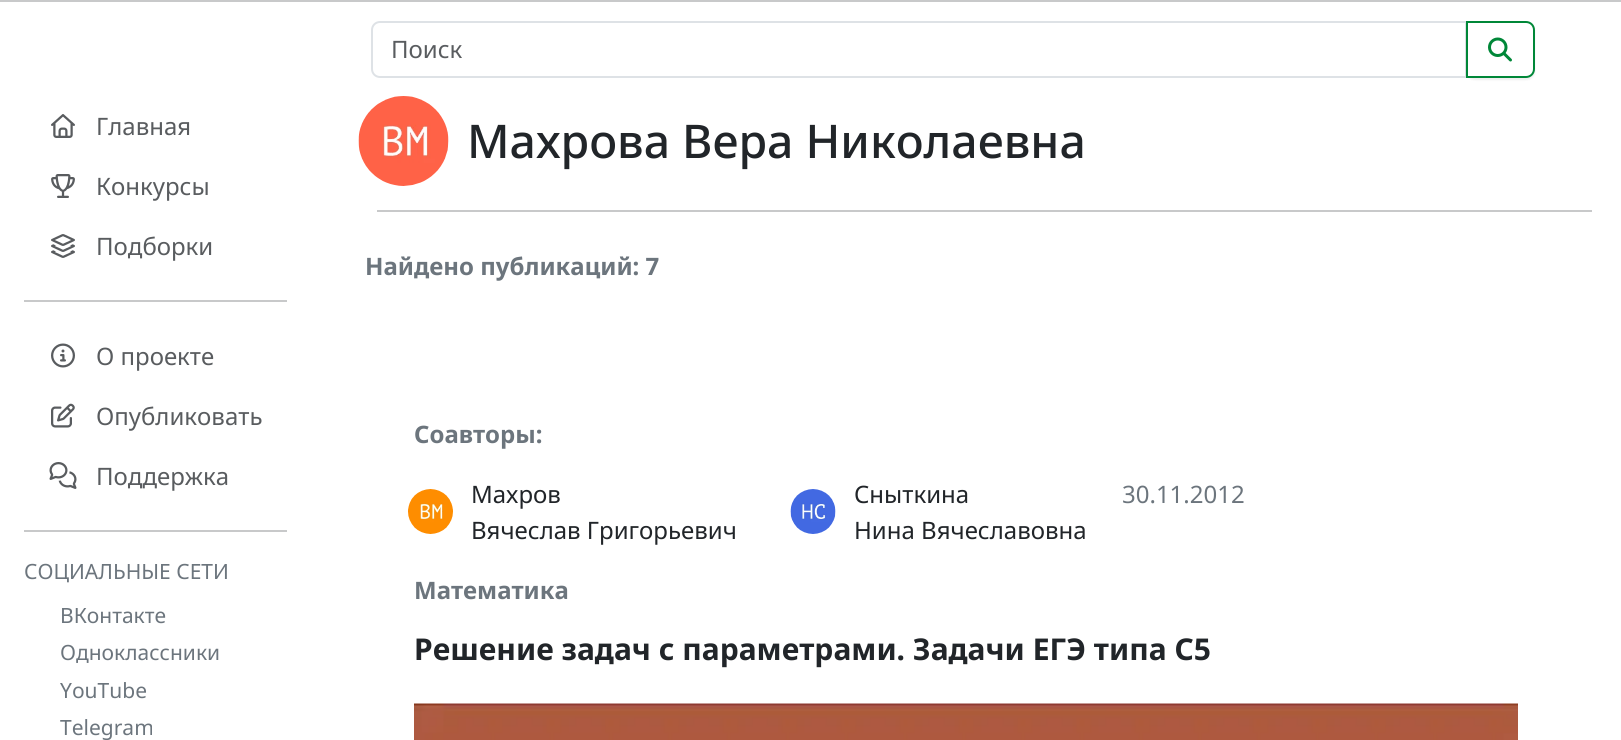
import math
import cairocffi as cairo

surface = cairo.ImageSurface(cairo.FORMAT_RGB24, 1621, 740)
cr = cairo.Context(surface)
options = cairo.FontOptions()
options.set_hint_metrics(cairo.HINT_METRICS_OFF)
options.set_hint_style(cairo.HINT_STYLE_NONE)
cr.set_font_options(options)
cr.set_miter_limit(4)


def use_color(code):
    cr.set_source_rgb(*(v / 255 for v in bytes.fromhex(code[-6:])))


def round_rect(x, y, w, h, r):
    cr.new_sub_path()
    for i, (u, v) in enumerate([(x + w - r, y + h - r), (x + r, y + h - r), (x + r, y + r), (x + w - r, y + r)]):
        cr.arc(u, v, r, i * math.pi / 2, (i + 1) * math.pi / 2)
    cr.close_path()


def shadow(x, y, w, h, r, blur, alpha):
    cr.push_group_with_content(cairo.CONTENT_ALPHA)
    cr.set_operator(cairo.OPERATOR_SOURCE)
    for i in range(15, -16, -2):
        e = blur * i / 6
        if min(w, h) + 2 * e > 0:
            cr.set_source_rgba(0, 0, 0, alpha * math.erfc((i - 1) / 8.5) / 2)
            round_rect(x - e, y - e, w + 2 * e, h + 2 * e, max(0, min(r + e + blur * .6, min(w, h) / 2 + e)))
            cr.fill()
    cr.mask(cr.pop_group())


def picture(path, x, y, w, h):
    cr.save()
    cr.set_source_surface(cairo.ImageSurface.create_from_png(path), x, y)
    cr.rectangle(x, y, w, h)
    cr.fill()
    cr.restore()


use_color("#ffffff")
cr.paint()
use_color("#c8c9ca")
cr.rectangle(0, 0, 1621, 2)
cr.fill()
cr.new_path()
cr.move_to(380, 22)
cr.line_to(1466, 22)
cr.line_to(1466, 77)
cr.line_to(380, 77)
cr.curve_to(375.5, 77, 372, 73.5, 372, 69)
cr.line_to(372, 30)
cr.curve_to(372, 25.5, 375.5, 22, 380, 22)
cr.close_path()
use_color("#dee2e6")
cr.stroke()
cr.select_font_face("Noto Sans")
cr.set_font_size(24)
use_color("#595c5f")
cr.move_to(391, 58)
cr.show_text("Поиск")
cr.save()
cr.set_fill_rule(cairo.FILL_RULE_EVEN_ODD)
cr.new_path()
cr.move_to(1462, 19)
cr.line_to(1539, 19)
cr.line_to(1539, 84)
cr.line_to(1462, 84)
cr.close_path()
cr.move_to(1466, 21)
cr.line_to(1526, 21)
cr.curve_to(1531, 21, 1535, 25, 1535, 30)
cr.line_to(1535, 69)
cr.curve_to(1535, 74, 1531, 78, 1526, 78)
cr.line_to(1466, 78)
cr.close_path()
cr.clip()
use_color("#000000")
shadow(1466, 23, 69, 57, 9, 1, 0.07)
cr.restore()
cr.new_path()
cr.move_to(1467, 22)
cr.line_to(1526, 22)
cr.curve_to(1530.5, 22, 1534, 25.5, 1534, 30)
cr.line_to(1534, 69)
cr.curve_to(1534, 73.5, 1530.5, 77, 1526, 77)
cr.line_to(1467, 77)
cr.close_path()
use_color("#008738")
cr.stroke()
picture("img1.png", 1488, 37, 24, 25)
picture("img2.png", 51, 114, 24, 24)
use_color("#595c5f")
cr.move_to(96, 135)
cr.show_text("Главная")
picture("img3.png", 51, 174, 24, 24)
cr.move_to(96, 195)
cr.show_text("Конкурсы")
picture("img4.png", 51, 234, 24, 24)
cr.move_to(96, 255)
cr.show_text("Подборки")
use_color("#c8c9ca")
cr.rectangle(24, 300, 263, 2)
cr.fill()
picture("img5.png", 51, 343, 24, 25)
use_color("#595c5f")
cr.move_to(96, 365)
cr.show_text("О проекте")
picture("img6.png", 51, 403, 24, 25)
cr.move_to(96, 425)
cr.show_text("Опубликовать")
picture("img7.png", 49, 462, 28, 27)
cr.move_to(96, 485)
cr.show_text("Поддержка")
use_color("#c8c9ca")
cr.rectangle(24, 530, 263, 2)
cr.fill()
cr.set_font_size(21)
use_color("#6c757d")
cr.move_to(24, 579)
cr.show_text("СОЦИАЛЬНЫЕ СЕТИ")
cr.move_to(60, 623)
cr.show_text("ВКонтакте")
cr.move_to(60, 660)
cr.show_text("Одноклассники")
cr.move_to(60, 698)
cr.show_text("YouTube")
cr.move_to(60, 735)
cr.show_text("Telegram")
picture("img8.png", 358, 96, 91, 90)
cr.select_font_face("Noto Sans Medium")
cr.set_font_size(46.4)
use_color("#212529")
cr.move_to(467, 158)
cr.show_text("Махрова Вера Николаевна")
use_color("#c8c9ca")
cr.rectangle(377, 210, 1215, 2)
cr.fill()
cr.select_font_face("Noto Sans", cairo.FONT_SLANT_NORMAL, cairo.FONT_WEIGHT_BOLD)
cr.set_font_size(24)
use_color("#6c757d")
cr.move_to(365, 275)
cr.show_text("Найдено публикаций: 7")
cr.move_to(414, 443)
cr.show_text("Соавторы:")
picture("img9.png", 408, 489, 45, 45)
cr.select_font_face("Noto Sans")
use_color("#212529")
cr.move_to(471, 503)
cr.show_text("Махров")
cr.move_to(471, 539)
cr.show_text("Вячеслав Григорьевич")
picture("img10.png", 790, 489, 46, 45)
cr.move_to(854, 503)
cr.show_text("Сныткина")
cr.move_to(854, 539)
cr.show_text("Нина Вячеславовна")
use_color("#6c757d")
cr.move_to(1122, 503)
cr.show_text("30.11.2012")
cr.select_font_face("Noto Sans", cairo.FONT_SLANT_NORMAL, cairo.FONT_WEIGHT_BOLD)
cr.move_to(414, 599)
cr.show_text("Математика")
cr.set_font_size(30)
use_color("#212529")
cr.move_to(414, 660)
cr.show_text("Решение задач с параметрами. Задачи ЕГЭ типа С5")
picture("img11.png", 414, 703, 1104, 37)
surface.write_to_png("result.png")
